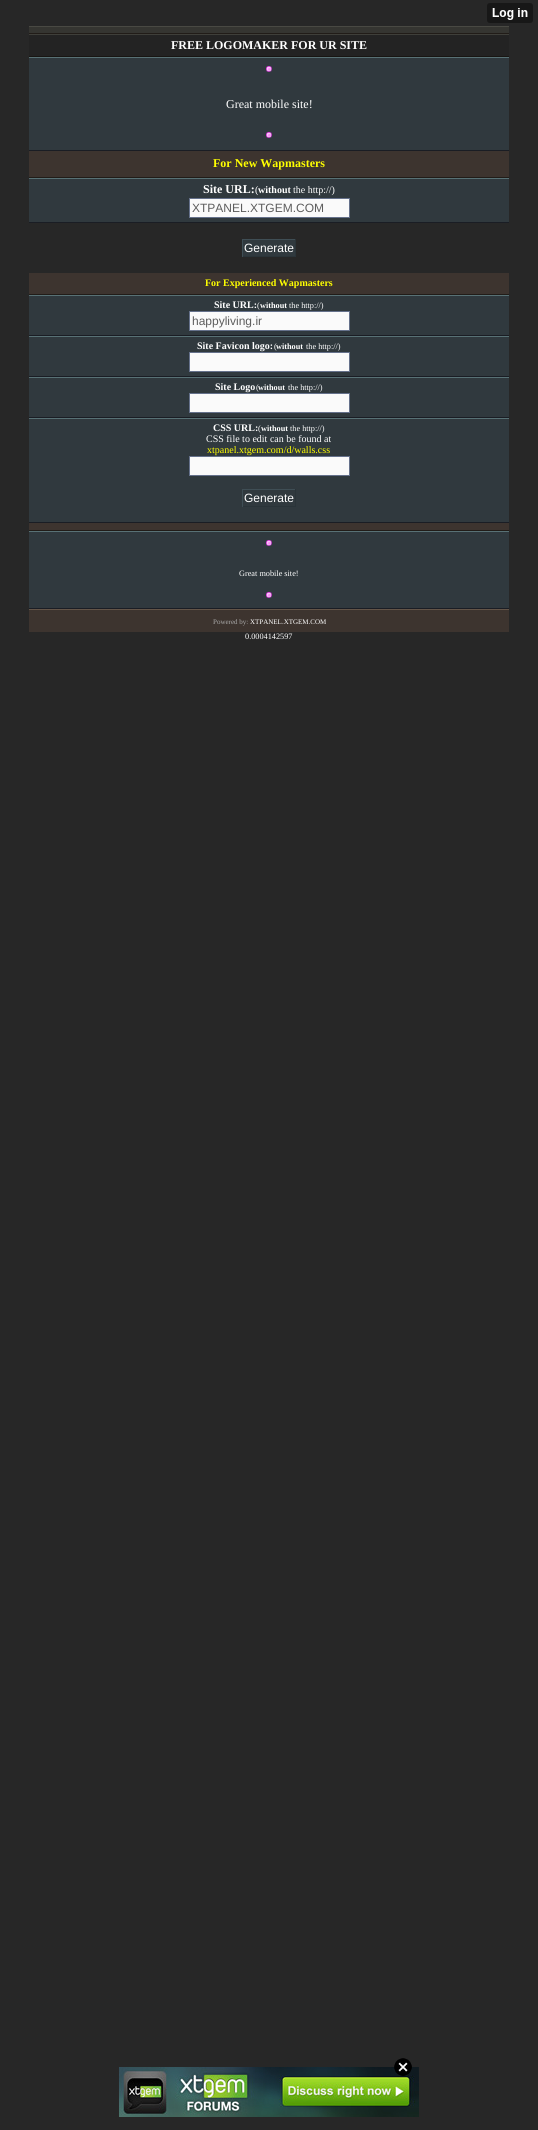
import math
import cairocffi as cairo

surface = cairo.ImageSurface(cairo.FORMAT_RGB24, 538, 2130)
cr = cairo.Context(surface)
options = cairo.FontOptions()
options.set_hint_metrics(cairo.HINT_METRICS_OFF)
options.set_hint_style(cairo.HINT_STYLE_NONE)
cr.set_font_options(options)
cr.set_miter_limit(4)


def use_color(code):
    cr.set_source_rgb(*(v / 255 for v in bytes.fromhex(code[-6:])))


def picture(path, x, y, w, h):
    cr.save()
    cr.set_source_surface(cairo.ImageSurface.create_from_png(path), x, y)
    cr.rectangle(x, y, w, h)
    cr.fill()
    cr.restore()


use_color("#272727")
cr.paint()
use_color("#353531")
cr.rectangle(29, 27, 480, 6)
cr.fill()
use_color("#494943")
cr.rectangle(29, 26, 480, 1)
cr.fill()
use_color("#211c18")
cr.rectangle(29, 33, 480, 1)
cr.fill()
use_color("#232323")
cr.rectangle(29, 35, 480, 21)
cr.fill()
use_color("#3f3f3a")
cr.rectangle(29, 34, 480, 1)
cr.fill()
use_color("#181512")
cr.rectangle(29, 56, 480, 1)
cr.fill()
cr.select_font_face("Liberation Serif", cairo.FONT_SLANT_NORMAL, cairo.FONT_WEIGHT_BOLD)
cr.set_font_size(12)
use_color("#ffffff")
cr.move_to(171, 49)
cr.show_text("FREE LOGOMAKER FOR UR SITE")
use_color("#30393e")
cr.rectangle(29, 58, 480, 92)
cr.fill()
use_color("#587175")
cr.rectangle(29, 57, 480, 1)
cr.fill()
use_color("#1a1d24")
cr.rectangle(29, 150, 480, 1)
cr.fill()
picture("img1.png", 266, 66, 6, 6)
cr.select_font_face("Liberation Serif")
use_color("#ffffff")
cr.move_to(226, 108)
cr.show_text("Great mobile site!")
picture("img1.png", 266, 132, 6, 6)
use_color("#3d342f")
cr.rectangle(29, 151, 480, 26)
cr.fill()
use_color("#211c18")
cr.rectangle(29, 177, 480, 1)
cr.fill()
cr.select_font_face("Liberation Serif", cairo.FONT_SLANT_NORMAL, cairo.FONT_WEIGHT_BOLD)
use_color("#ffff00")
cr.move_to(213, 167)
cr.show_text("For New Wapmasters")
use_color("#30393e")
cr.rectangle(29, 179, 480, 43)
cr.fill()
use_color("#587175")
cr.rectangle(29, 178, 480, 1)
cr.fill()
use_color("#1a1d24")
cr.rectangle(29, 222, 480, 1)
cr.fill()
use_color("#ffffff")
cr.move_to(203, 193)
cr.show_text("Site URL:")
cr.select_font_face("Liberation Serif")
cr.set_font_size(10)
cr.move_to(255, 193)
cr.show_text("(")
cr.select_font_face("Liberation Serif", cairo.FONT_SLANT_NORMAL, cairo.FONT_WEIGHT_BOLD)
cr.move_to(258, 193)
cr.show_text("without")
cr.select_font_face("Liberation Serif")
cr.move_to(293, 193)
cr.show_text("the http://)")
use_color("#fafafa")
cr.rectangle(189.5, 198.5, 160, 19)
cr.fill_preserve()
use_color("#65718b")
cr.set_line_width(1)
cr.stroke()
cr.select_font_face("Liberation Sans")
cr.set_font_size(12)
use_color("#5d5d5d")
cr.move_to(192, 212)
cr.show_text("XTPANEL.XTGEM.COM")
use_color("#30393e")
cr.rectangle(243, 240, 52, 16)
cr.fill()
use_color("#3f4e55")
cr.rectangle(242, 239, 54, 1)
cr.fill()
use_color("#2a3439")
cr.rectangle(295, 239, 1, 18)
cr.fill()
cr.rectangle(242, 256, 54, 1)
cr.fill()
use_color("#3f4e55")
cr.rectangle(242, 239, 1, 18)
cr.fill()
use_color("#ffffff")
cr.move_to(244, 252)
cr.show_text("Generate")
use_color("#3d342f")
cr.rectangle(29, 273, 480, 21)
cr.fill()
use_color("#211c18")
cr.rectangle(29, 294, 480, 1)
cr.fill()
cr.select_font_face("Liberation Serif", cairo.FONT_SLANT_NORMAL, cairo.FONT_WEIGHT_BOLD)
cr.set_font_size(10)
use_color("#ffff00")
cr.move_to(205, 286)
cr.show_text("For Experienced Wapmasters")
use_color("#30393e")
cr.rectangle(29, 296, 480, 39)
cr.fill()
use_color("#587175")
cr.rectangle(29, 295, 480, 1)
cr.fill()
use_color("#1a1d24")
cr.rectangle(29, 335, 480, 1)
cr.fill()
use_color("#ffffff")
cr.move_to(214, 308)
cr.show_text("Site URL:")
cr.select_font_face("Liberation Serif")
cr.set_font_size(8.25)
cr.move_to(257, 308)
cr.show_text("(")
cr.select_font_face("Liberation Serif", cairo.FONT_SLANT_NORMAL, cairo.FONT_WEIGHT_BOLD)
cr.move_to(260, 308)
cr.show_text("without")
cr.select_font_face("Liberation Serif")
cr.move_to(289, 308)
cr.show_text("the http://)")
use_color("#fafafa")
cr.rectangle(189.5, 311.5, 160, 19)
cr.fill_preserve()
use_color("#65718b")
cr.stroke()
cr.select_font_face("Liberation Sans")
cr.set_font_size(12)
use_color("#5d5d5d")
cr.move_to(192, 325)
cr.show_text("happyliving.ir")
use_color("#30393e")
cr.rectangle(29, 337, 480, 39)
cr.fill()
use_color("#587175")
cr.rectangle(29, 336, 480, 1)
cr.fill()
use_color("#1a1d24")
cr.rectangle(29, 376, 480, 1)
cr.fill()
cr.select_font_face("Liberation Serif", cairo.FONT_SLANT_NORMAL, cairo.FONT_WEIGHT_BOLD)
cr.set_font_size(10)
use_color("#ffffff")
cr.move_to(197, 349)
cr.show_text("Site Favicon logo:")
cr.select_font_face("Liberation Serif")
cr.set_font_size(8.25)
cr.move_to(274, 349)
cr.show_text("(")
cr.select_font_face("Liberation Serif", cairo.FONT_SLANT_NORMAL, cairo.FONT_WEIGHT_BOLD)
cr.move_to(276, 349)
cr.show_text("without")
cr.select_font_face("Liberation Serif")
cr.move_to(306, 349)
cr.show_text("the http://)")
use_color("#fafafa")
cr.rectangle(189.5, 352.5, 160, 19)
cr.fill_preserve()
use_color("#65718b")
cr.stroke()
use_color("#30393e")
cr.rectangle(29, 378, 480, 39)
cr.fill()
use_color("#587175")
cr.rectangle(29, 377, 480, 1)
cr.fill()
use_color("#1a1d24")
cr.rectangle(29, 417, 480, 1)
cr.fill()
cr.select_font_face("Liberation Serif", cairo.FONT_SLANT_NORMAL, cairo.FONT_WEIGHT_BOLD)
cr.set_font_size(10)
use_color("#ffffff")
cr.move_to(215, 390)
cr.show_text("Site Logo")
cr.select_font_face("Liberation Serif")
cr.set_font_size(8.25)
cr.move_to(256, 390)
cr.show_text("(")
cr.select_font_face("Liberation Serif", cairo.FONT_SLANT_NORMAL, cairo.FONT_WEIGHT_BOLD)
cr.move_to(258, 390)
cr.show_text("without")
cr.select_font_face("Liberation Serif")
cr.move_to(288, 390)
cr.show_text("the http://)")
use_color("#fafafa")
cr.rectangle(189.5, 393.5, 160, 19)
cr.fill_preserve()
use_color("#65718b")
cr.stroke()
use_color("#30393e")
cr.rectangle(29, 419, 480, 103)
cr.fill()
use_color("#587175")
cr.rectangle(29, 418, 480, 1)
cr.fill()
use_color("#1a1d24")
cr.rectangle(29, 522, 480, 1)
cr.fill()
cr.select_font_face("Liberation Serif", cairo.FONT_SLANT_NORMAL, cairo.FONT_WEIGHT_BOLD)
cr.set_font_size(10)
use_color("#ffffff")
cr.move_to(213, 431)
cr.show_text("CSS URL:")
cr.select_font_face("Liberation Serif")
cr.set_font_size(8.25)
cr.move_to(258, 431)
cr.show_text("(")
cr.select_font_face("Liberation Serif", cairo.FONT_SLANT_NORMAL, cairo.FONT_WEIGHT_BOLD)
cr.move_to(261, 431)
cr.show_text("without")
cr.select_font_face("Liberation Serif")
cr.move_to(290, 431)
cr.show_text("the http://)")
cr.set_font_size(10)
cr.move_to(206, 442)
cr.show_text("CSS file to edit can be found at")
use_color("#ffff00")
cr.move_to(207, 453)
cr.show_text("xtpanel.xtgem.com/d/walls.css")
use_color("#fafafa")
cr.rectangle(189.5, 456.5, 160, 19)
cr.fill_preserve()
use_color("#65718b")
cr.stroke()
use_color("#3f4e55")
cr.rectangle(242, 489, 54, 1)
cr.fill()
use_color("#2a3439")
cr.rectangle(295, 489, 1, 18)
cr.fill()
cr.rectangle(242, 506, 54, 1)
cr.fill()
use_color("#3f4e55")
cr.rectangle(242, 489, 1, 18)
cr.fill()
cr.select_font_face("Liberation Sans")
cr.set_font_size(12)
use_color("#ffffff")
cr.move_to(244, 502)
cr.show_text("Generate")
picture("img2.png", 487, 3, 46, 20)
use_color("#3d342f")
cr.rectangle(29, 523, 480, 7)
cr.fill()
use_color("#211c18")
cr.rectangle(29, 530, 480, 1)
cr.fill()
use_color("#30393e")
cr.rectangle(29, 532, 480, 76)
cr.fill()
use_color("#587175")
cr.rectangle(29, 531, 480, 1)
cr.fill()
use_color("#1a1d24")
cr.rectangle(29, 608, 480, 1)
cr.fill()
picture("img1.png", 266, 540, 6, 6)
cr.select_font_face("Liberation Serif")
cr.set_font_size(8.25)
use_color("#ffffff")
cr.move_to(239, 576)
cr.show_text("Great mobile site!")
picture("img1.png", 266, 592, 6, 6)
use_color("#3d342f")
cr.rectangle(29, 610, 480, 22)
cr.fill()
use_color("#645548")
cr.rectangle(29, 609, 480, 1)
cr.fill()
cr.set_font_size(7)
use_color("#aaaaaa")
cr.move_to(213, 624)
cr.show_text("Powered by:")
use_color("#ffffff")
cr.move_to(250, 624)
cr.show_text("XTPANEL.XTGEM.COM")
cr.set_font_size(8.25)
cr.move_to(245, 639)
cr.show_text("0.0004142597")
picture("img4.png", 119, 2067, 300, 50)
picture("img3.png", 394, 2058, 18, 18)
surface.write_to_png("result.png")
